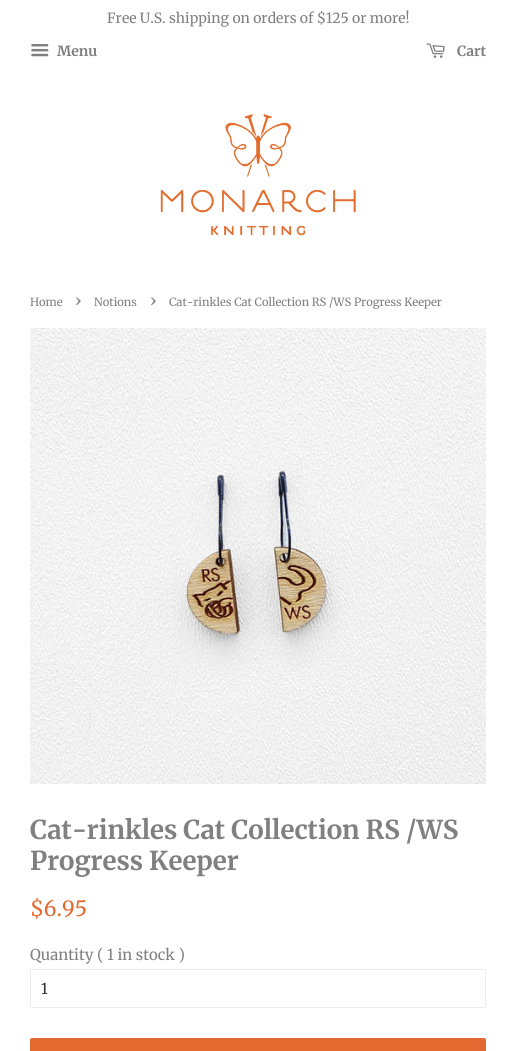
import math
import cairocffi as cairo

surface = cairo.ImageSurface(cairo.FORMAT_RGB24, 516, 1051)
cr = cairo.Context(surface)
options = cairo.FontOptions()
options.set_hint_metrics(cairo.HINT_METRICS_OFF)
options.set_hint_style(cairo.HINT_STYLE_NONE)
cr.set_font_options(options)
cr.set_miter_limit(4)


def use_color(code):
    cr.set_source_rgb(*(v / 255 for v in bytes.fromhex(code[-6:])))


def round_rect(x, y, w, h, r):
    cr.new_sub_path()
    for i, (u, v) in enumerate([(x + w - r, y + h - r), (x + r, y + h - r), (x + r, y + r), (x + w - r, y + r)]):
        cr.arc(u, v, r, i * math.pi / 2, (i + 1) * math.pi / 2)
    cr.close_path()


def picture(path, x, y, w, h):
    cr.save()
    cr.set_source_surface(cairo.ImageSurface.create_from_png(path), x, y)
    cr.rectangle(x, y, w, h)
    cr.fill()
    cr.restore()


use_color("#ffffff")
cr.paint()
cr.select_font_face("Merriweather")
cr.set_font_size(14)
use_color("#808080")
cr.move_to(107, 23)
cr.show_text("Free U.S. shipping on orders of $125 or more!")
picture("img1.png", 31, 44, 18, 13)
cr.select_font_face("Merriweather", cairo.FONT_SLANT_NORMAL, cairo.FONT_WEIGHT_BOLD)
cr.move_to(57, 56)
cr.show_text("Menu")
picture("img2.png", 426, 43, 19, 15)
cr.move_to(457, 56)
cr.show_text("Cart")
picture("img3.png", 160, 114, 196, 122)
cr.select_font_face("Merriweather")
cr.set_font_size(11.25)
cr.move_to(30, 306)
cr.show_text("Home")
cr.set_font_size(16)
cr.move_to(75, 306)
cr.show_text("›")
cr.set_font_size(11.25)
cr.move_to(94, 306)
cr.show_text("Notions")
cr.set_font_size(16)
cr.move_to(150, 306)
cr.show_text("›")
cr.set_font_size(11.25)
cr.move_to(169, 306)
cr.show_text("Cat-rinkles Cat Collection RS /WS Progress Keeper")
picture("img4.png", 30, 328, 456, 456)
cr.select_font_face("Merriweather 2", cairo.FONT_SLANT_NORMAL, cairo.FONT_WEIGHT_BOLD)
cr.set_font_size(26)
cr.move_to(30, 839)
cr.show_text("Cat-rinkles Cat Collection RS /WS")
cr.move_to(30, 870)
cr.show_text("Progress Keeper")
cr.select_font_face("Merriweather")
cr.set_font_size(21)
use_color("#e26a30")
cr.move_to(30, 916)
cr.show_text("$6.95")
cr.set_font_size(15)
use_color("#808080")
cr.move_to(30, 960)
cr.show_text("Quantity ( 1 in stock )")
round_rect(30.5, 969.5, 455, 38, 1.5)
use_color("#ececec")
cr.set_line_width(1)
cr.stroke()
use_color("#333333")
cr.move_to(41, 994)
cr.show_text("1")
use_color("#e26a30")
round_rect(30, 1038, 456, 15, 2)
cr.fill()
surface.write_to_png("result.png")
